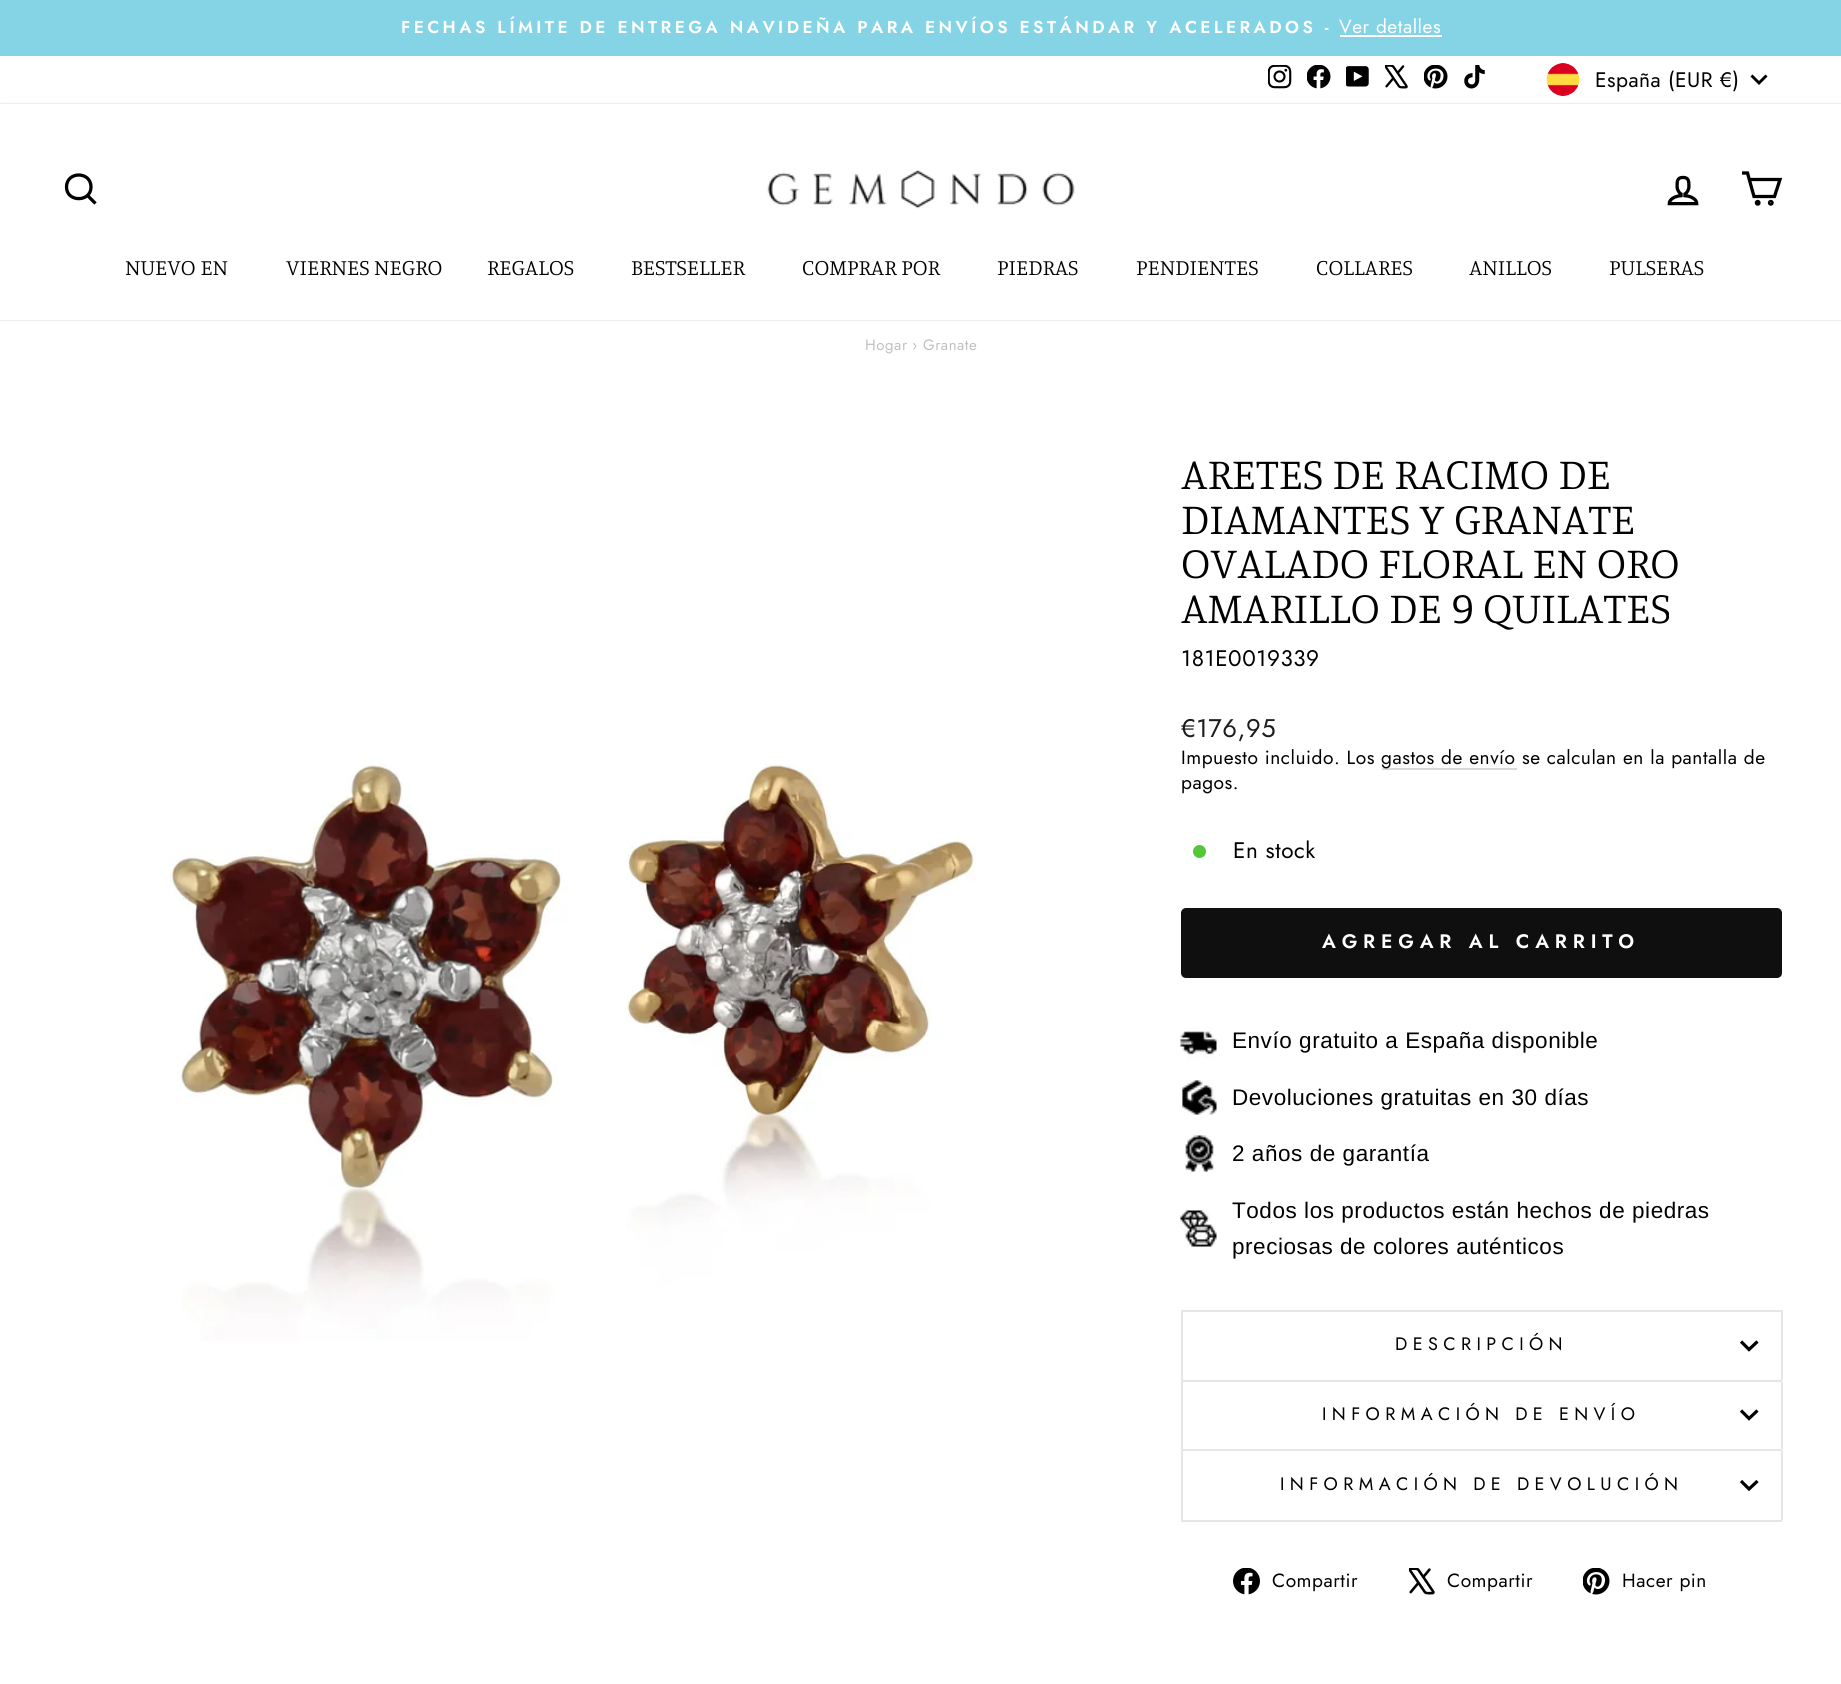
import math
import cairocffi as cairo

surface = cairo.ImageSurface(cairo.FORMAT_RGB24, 1841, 1684)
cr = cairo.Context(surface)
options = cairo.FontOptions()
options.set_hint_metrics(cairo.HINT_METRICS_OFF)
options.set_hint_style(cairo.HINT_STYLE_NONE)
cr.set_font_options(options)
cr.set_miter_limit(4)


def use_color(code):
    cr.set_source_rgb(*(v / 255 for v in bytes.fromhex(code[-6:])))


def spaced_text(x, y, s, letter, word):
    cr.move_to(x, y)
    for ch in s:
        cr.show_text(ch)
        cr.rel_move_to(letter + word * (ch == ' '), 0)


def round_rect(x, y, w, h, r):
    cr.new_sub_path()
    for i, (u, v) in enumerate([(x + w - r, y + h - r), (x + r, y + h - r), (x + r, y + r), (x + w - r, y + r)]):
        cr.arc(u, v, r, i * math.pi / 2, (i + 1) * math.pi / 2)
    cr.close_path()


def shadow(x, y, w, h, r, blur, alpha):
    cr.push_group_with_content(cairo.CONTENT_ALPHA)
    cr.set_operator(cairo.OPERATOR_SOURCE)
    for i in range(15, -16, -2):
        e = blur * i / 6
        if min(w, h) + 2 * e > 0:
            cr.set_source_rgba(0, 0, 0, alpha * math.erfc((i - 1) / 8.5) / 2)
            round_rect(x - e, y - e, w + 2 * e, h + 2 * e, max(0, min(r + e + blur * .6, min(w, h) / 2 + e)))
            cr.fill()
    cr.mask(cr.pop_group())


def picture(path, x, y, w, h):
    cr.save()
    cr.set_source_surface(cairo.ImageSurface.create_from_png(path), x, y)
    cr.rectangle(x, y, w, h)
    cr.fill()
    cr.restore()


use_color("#ffffff")
cr.paint()
use_color("#85d4e6")
cr.rectangle(0, 0, 1841, 56)
cr.fill()
cr.select_font_face("Jost SemiBold")
cr.set_font_size(17.2)
use_color("#ffffff")
spaced_text(401, 33, "FECHAS LÍMITE DE ENTREGA NAVIDEÑA PARA ENVÍOS ESTÁNDAR Y ACELERADOS -", 3.45, 0)
cr.select_font_face("Jost")
cr.set_font_size(19.1)
spaced_text(1339, 33, "Ver detalles", 0.55, 0)
cr.rectangle(1340, 35, 102, 2)
cr.fill()
picture("img1.png", 1268, 65, 24, 24)
picture("img2.png", 1307, 65, 24, 24)
picture("img3.png", 1346, 66, 23, 21)
picture("img4.png", 1385, 65, 23, 24)
picture("img5.png", 1424, 65, 24, 24)
picture("img6.png", 1464, 65, 21, 24)
picture("img7.png", 1546, 63, 34, 33)
cr.set_font_size(21)
use_color("#000000")
spaced_text(1595, 87, "España (EUR €)", 0.5, 0)
cr.new_path()
cr.move_to(1751.5, 75.5)
cr.line_to(1759, 83)
cr.line_to(1766.5, 75.5)
cr.set_line_width(2.9)
cr.stroke()
use_color("#000000")
shadow(0, 104, 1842, 216, 0, 1, 0.2)
use_color("#ffffff")
cr.rectangle(0, 104, 1841, 216)
cr.fill()
cr.new_path()
cr.move_to(91, 187)
cr.curve_to(91, 202.5, 66.5, 202.5, 66.5, 187)
cr.curve_to(66.5, 171, 91, 171, 91, 187)
cr.close_path()
cr.move_to(95.5, 203.5)
cr.line_to(87.5, 195.5)
use_color("#000000")
cr.set_line_width(3.3)
cr.stroke()
picture("img8.png", 767, 170, 308, 39)
picture("img9.png", 1667, 175, 32, 31)
cr.new_path()
cr.move_to(1749, 179.5)
cr.line_to(1780, 179.5)
cr.line_to(1774.5, 196.5)
cr.line_to(1754, 196.5)
cr.line_to(1747.5, 173)
cr.line_to(1742, 173)
cr.stroke()
cr.arc(1757.7, 202.8, 1.3, 0, 2 * math.pi)
cr.fill_preserve()
cr.stroke()
cr.arc(1770.8, 202.8, 1.3, 0, 2 * math.pi)
cr.stroke()
cr.select_font_face("Manuale Light")
cr.set_font_size(22.5)
cr.move_to(125, 275)
cr.show_text("NUEVO EN")
cr.move_to(286, 275)
cr.show_text("VIERNES NEGRO")
cr.move_to(487, 275)
cr.show_text("REGALOS")
cr.move_to(631, 275)
cr.show_text("BESTSELLER")
cr.move_to(802, 275)
cr.show_text("COMPRAR POR")
cr.move_to(997, 275)
cr.show_text("PIEDRAS")
cr.move_to(1136, 275)
cr.show_text("PENDIENTES")
cr.move_to(1316, 275)
cr.show_text("COLLARES")
cr.move_to(1469, 275)
cr.show_text("ANILLOS")
cr.move_to(1609, 275)
cr.show_text("PULSERAS")
cr.select_font_face("Jost")
cr.set_font_size(15)
use_color("#c0c0c0")
spaced_text(865, 350, "Hogar", 0.55, 0)
spaced_text(912, 350, "›", 0.55, 0)
spaced_text(923, 350, "Granate", 0.55, 0)
picture("img10.png", 169, 759, 807, 582)
cr.select_font_face("Manuale Light")
cr.set_font_size(44.6)
use_color("#000000")
cr.move_to(1181, 489)
cr.show_text("ARETES DE RACIMO DE")
cr.move_to(1181, 534)
cr.show_text("DIAMANTES Y GRANATE")
cr.move_to(1181, 578)
cr.show_text("OVALADO FLORAL EN ORO")
cr.move_to(1181, 623)
cr.show_text("AMARILLO DE 9 QUILATES")
cr.select_font_face("Jost")
cr.set_font_size(22.5)
spaced_text(1181, 666, "181E0019339", 0.55, 0)
cr.set_font_size(25.5)
use_color("#1c1d1d")
spaced_text(1181, 737, "€176,95", 0.55, 0)
cr.set_font_size(19.1)
use_color("#000000")
spaced_text(1181, 764, "Impuesto incluido. Los", 0.55, 0)
use_color("#d9d9d9")
cr.rectangle(1382, 768, 135, 2)
cr.fill()
use_color("#000000")
spaced_text(1381, 764, "gastos de envío se calculan en la pantalla de", 0.55, 0)
spaced_text(1181, 789, "pagos.", 0.55, 0)
use_color("#54c63a")
cr.new_path()
cr.arc(1199.5, 851.5, 6.5, 0, 2 * math.pi)
cr.fill()
cr.set_font_size(22.5)
use_color("#000000")
spaced_text(1233, 858, "En stock", 0.55, 0)
use_color("#0f0f0f")
round_rect(1181, 908, 601, 70, 5)
cr.fill()
cr.select_font_face("Jost SemiBold")
cr.set_font_size(19.5)
use_color("#ffffff")
spaced_text(1322, 948, "AGREGAR AL CARRITO", 5.8, 0)
picture("img11.png", 1180, 1031, 37, 28)
cr.select_font_face("Liberation Sans")
cr.set_font_size(22.5)
use_color("#000000")
spaced_text(1232, 1048, "Envío gratuito a España disponible", 0.55, 0)
picture("img12.png", 1180, 1080, 37, 35)
spaced_text(1232, 1105, "Devoluciones gratuitas en 30 días", 0.55, 0)
picture("img13.png", 1185, 1135, 31, 37)
spaced_text(1232, 1161, "2 años de garantía", 0.55, 0)
picture("img14.png", 1180, 1210, 37, 37)
spaced_text(1232, 1218, "Todos los productos están hechos de piedras", 0.55, 0)
spaced_text(1232, 1254, "preciosas de colores auténticos", 0.55, 0)
use_color("#e6e6e6")
cr.rectangle(1181, 1380, 601, 2)
cr.fill()
cr.rectangle(1181, 1310, 601, 2)
cr.fill()
cr.rectangle(1781, 1310, 2, 70)
cr.fill()
cr.rectangle(1181, 1310, 2, 70)
cr.fill()
cr.select_font_face("Jost")
cr.set_font_size(18)
use_color("#000000")
spaced_text(1395, 1350, "DESCRIPCIÓN", 5.4, 0)
cr.new_path()
cr.move_to(1741, 1341.5)
cr.line_to(1749, 1349.5)
cr.line_to(1757.5, 1341.5)
cr.set_line_width(3.2)
cr.stroke()
use_color("#e6e6e6")
cr.rectangle(1181, 1449, 601, 2)
cr.fill()
cr.rectangle(1781, 1382, 2, 67)
cr.fill()
cr.rectangle(1181, 1382, 2, 67)
cr.fill()
use_color("#000000")
spaced_text(1322, 1420, "INFORMACIÓN DE ENVÍO", 5.4, 0)
cr.new_path()
cr.move_to(1741, 1410.5)
cr.line_to(1749, 1418.5)
cr.line_to(1757.5, 1410.5)
cr.stroke()
use_color("#e6e6e6")
cr.rectangle(1181, 1520, 601, 2)
cr.fill()
cr.rectangle(1781, 1451, 2, 69)
cr.fill()
cr.rectangle(1181, 1451, 2, 69)
cr.fill()
use_color("#000000")
spaced_text(1280, 1490, "INFORMACIÓN DE DEVOLUCIÓN", 5.4, 0)
cr.new_path()
cr.move_to(1741, 1481)
cr.line_to(1749, 1489)
cr.line_to(1757.5, 1481)
cr.stroke()
picture("img15.png", 1233, 1568, 27, 27)
cr.set_font_size(19.1)
spaced_text(1272, 1587, "Compartir", 0.55, 0)
picture("img16.png", 1409, 1568, 26, 27)
spaced_text(1447, 1587, "Compartir", 0.55, 0)
picture("img17.png", 1583, 1568, 27, 27)
spaced_text(1622, 1587, "Hacer pin", 0.55, 0)
surface.write_to_png("result.png")
